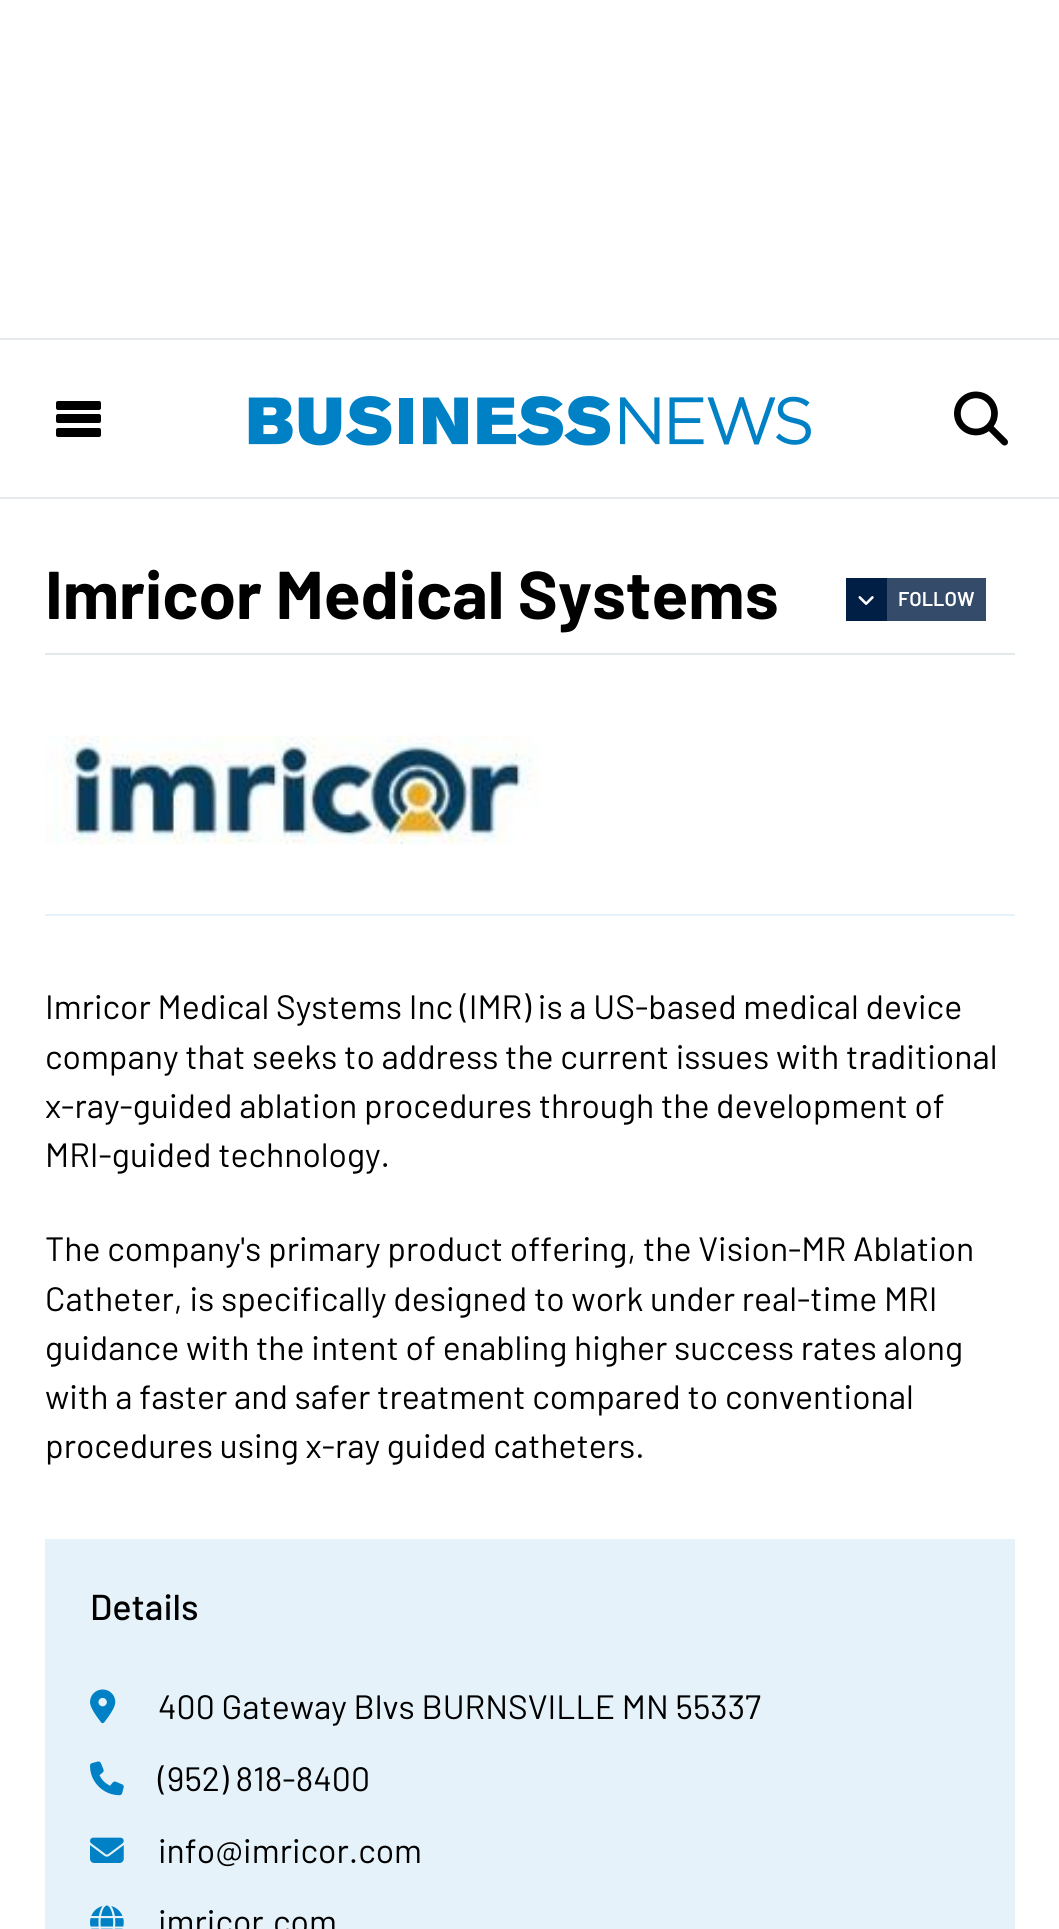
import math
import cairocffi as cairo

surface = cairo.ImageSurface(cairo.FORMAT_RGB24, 1059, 1929)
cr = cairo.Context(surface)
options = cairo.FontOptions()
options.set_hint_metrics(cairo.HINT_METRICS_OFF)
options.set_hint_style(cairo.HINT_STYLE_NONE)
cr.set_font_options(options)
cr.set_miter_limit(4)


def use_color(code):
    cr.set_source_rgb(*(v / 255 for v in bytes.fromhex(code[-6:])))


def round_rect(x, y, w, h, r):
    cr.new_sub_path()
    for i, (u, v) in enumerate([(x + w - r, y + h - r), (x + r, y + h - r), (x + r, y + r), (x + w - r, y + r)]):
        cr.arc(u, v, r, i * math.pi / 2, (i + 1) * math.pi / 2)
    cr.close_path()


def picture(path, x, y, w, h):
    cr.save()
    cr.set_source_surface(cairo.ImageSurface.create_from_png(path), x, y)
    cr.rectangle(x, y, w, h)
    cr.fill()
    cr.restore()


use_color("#ffffff")
cr.paint()
use_color("#e6e9ec")
cr.rectangle(0, 338, 1059, 2)
cr.fill()
cr.rectangle(0, 497, 1059, 2)
cr.fill()
use_color("#000000")
round_rect(56, 401, 45, 9, 2)
cr.fill()
round_rect(56, 414, 45, 9, 2)
cr.fill()
round_rect(56, 428, 45, 9, 2)
cr.fill()
picture("img1.png", 248, 396, 563, 50)
picture("img2.png", 954, 391, 54, 55)
cr.select_font_face("Barlow", cairo.FONT_SLANT_NORMAL, cairo.FONT_WEIGHT_BOLD)
cr.set_font_size(67.5)
cr.move_to(45, 619)
cr.show_text("Imricor Medical Systems")
use_color("#344b6a")
cr.rectangle(887, 578, 99, 43)
cr.fill()
use_color("#011e45")
cr.rectangle(846, 578, 41, 43)
cr.fill()
picture("img3.png", 858, 596, 16, 9)
cr.select_font_face("Barlow SemiBold")
cr.set_font_size(20)
use_color("#ffffff")
cr.move_to(898, 606)
cr.show_text("FOLLOW")
use_color("#e2e9eb")
cr.rectangle(45, 653, 970, 2)
cr.fill()
use_color("#e6f2f9")
cr.rectangle(45, 914, 970, 2)
cr.fill()
picture("img4.png", 45, 735, 495, 110)
cr.select_font_face("Barlow")
cr.set_font_size(33.75)
use_color("#000000")
cr.move_to(45, 1019)
cr.show_text("Imricor Medical Systems Inc (IMR) is a US-based medical device")
cr.move_to(45, 1069)
cr.show_text("company that seeks to address the current issues with traditional")
cr.move_to(45, 1118)
cr.show_text("x-ray-guided ablation procedures through the development of")
cr.move_to(45, 1167)
cr.show_text("MRI-guided technology.")
cr.move_to(45, 1261)
cr.show_text("The company's primary product offering, the Vision-MR Ablation")
cr.move_to(45, 1311)
cr.show_text("Catheter, is specifically designed to work under real-time MRI")
cr.move_to(45, 1360)
cr.show_text("guidance with the intent of enabling higher success rates along")
cr.move_to(45, 1409)
cr.show_text("with a faster and safer treatment compared to conventional")
cr.move_to(45, 1458)
cr.show_text("procedures using x-ray guided catheters.")
use_color("#e6f2f9")
cr.rectangle(45, 1539, 970, 390)
cr.fill()
cr.select_font_face("Barlow Medium")
cr.set_font_size(36)
use_color("#000000")
cr.move_to(90, 1620)
cr.show_text("Details")
picture("img5.png", 90, 1689, 26, 35)
cr.select_font_face("Barlow")
cr.set_font_size(33.75)
cr.move_to(158, 1719)
cr.show_text("400 Gateway Blvs BURNSVILLE MN 55337")
picture("img6.png", 90, 1761, 34, 35)
cr.move_to(158, 1791)
cr.show_text("(952) 818-8400")
picture("img7.png", 90, 1837, 34, 26)
cr.move_to(158, 1863)
cr.show_text("info@imricor.com")
picture("img8.png", 90, 1905, 34, 24)
cr.move_to(158, 1934)
cr.show_text("imricor.com")
surface.write_to_png("result.png")
